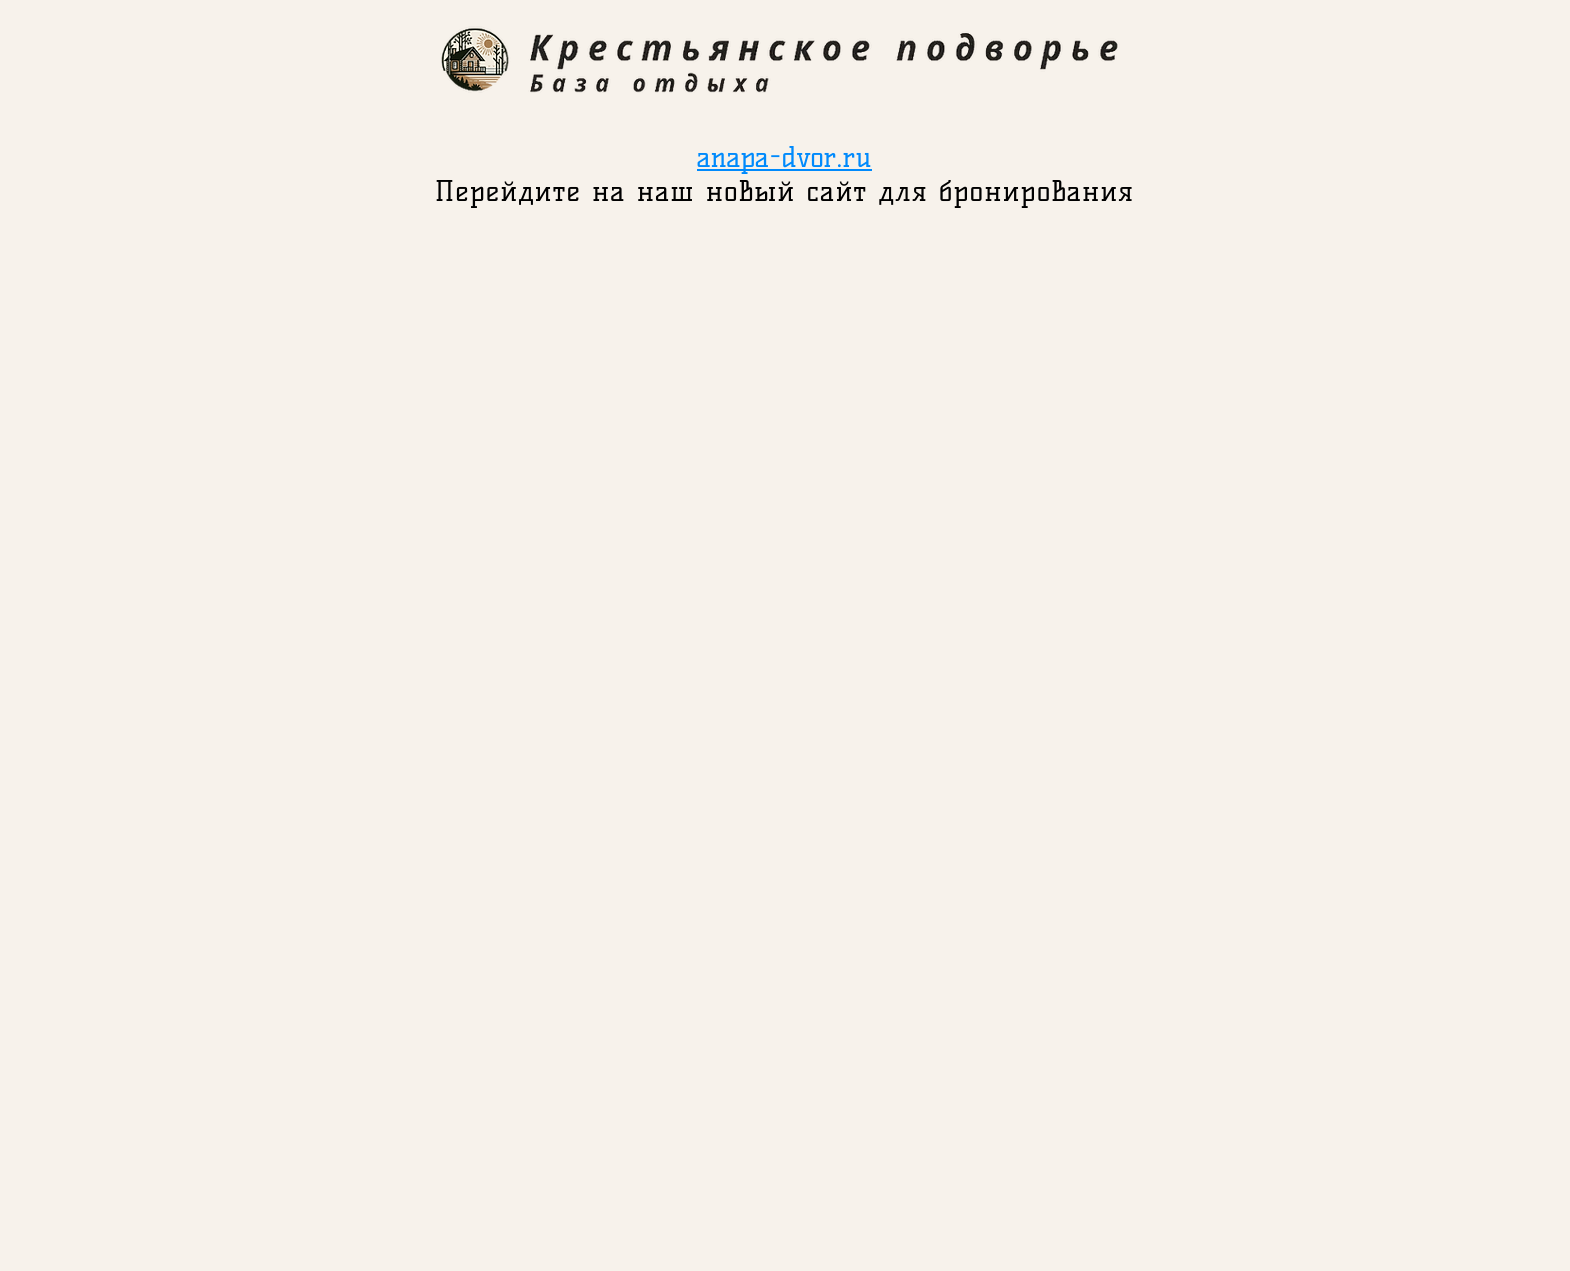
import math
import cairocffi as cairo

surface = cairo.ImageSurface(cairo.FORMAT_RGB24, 1570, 1271)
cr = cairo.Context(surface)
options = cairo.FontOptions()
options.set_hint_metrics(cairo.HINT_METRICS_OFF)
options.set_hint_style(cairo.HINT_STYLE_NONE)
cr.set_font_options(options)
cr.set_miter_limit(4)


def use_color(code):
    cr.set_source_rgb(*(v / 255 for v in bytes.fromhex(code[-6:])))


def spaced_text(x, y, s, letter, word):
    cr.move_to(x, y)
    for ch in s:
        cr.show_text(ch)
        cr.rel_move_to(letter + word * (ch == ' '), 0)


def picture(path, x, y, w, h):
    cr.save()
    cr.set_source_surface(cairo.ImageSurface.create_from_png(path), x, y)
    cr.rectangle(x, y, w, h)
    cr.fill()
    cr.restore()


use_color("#f7f2eb")
cr.paint()
picture("img1.png", 440, 26, 680, 67)
use_color("#008afc")
cr.rectangle(697, 169, 175, 2)
cr.fill()
cr.select_font_face("Kelly Slab")
cr.set_font_size(28)
cr.move_to(697, 167)
cr.show_text("anapa-dvor.ru")
use_color("#000000")
spaced_text(435, 201, "Перейдите на наш новый сайт для бронирования", 1.4, 0)
surface.write_to_png("result.png")
